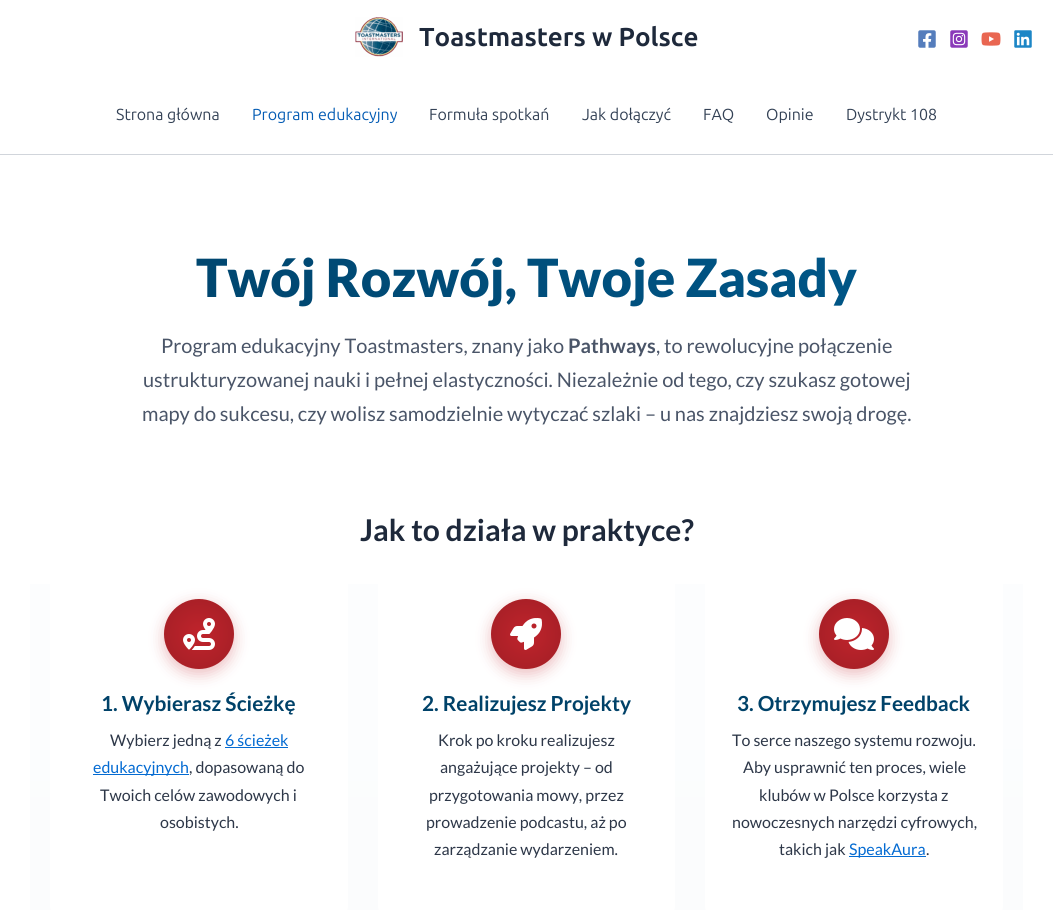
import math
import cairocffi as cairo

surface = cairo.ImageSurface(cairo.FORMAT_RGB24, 1053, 910)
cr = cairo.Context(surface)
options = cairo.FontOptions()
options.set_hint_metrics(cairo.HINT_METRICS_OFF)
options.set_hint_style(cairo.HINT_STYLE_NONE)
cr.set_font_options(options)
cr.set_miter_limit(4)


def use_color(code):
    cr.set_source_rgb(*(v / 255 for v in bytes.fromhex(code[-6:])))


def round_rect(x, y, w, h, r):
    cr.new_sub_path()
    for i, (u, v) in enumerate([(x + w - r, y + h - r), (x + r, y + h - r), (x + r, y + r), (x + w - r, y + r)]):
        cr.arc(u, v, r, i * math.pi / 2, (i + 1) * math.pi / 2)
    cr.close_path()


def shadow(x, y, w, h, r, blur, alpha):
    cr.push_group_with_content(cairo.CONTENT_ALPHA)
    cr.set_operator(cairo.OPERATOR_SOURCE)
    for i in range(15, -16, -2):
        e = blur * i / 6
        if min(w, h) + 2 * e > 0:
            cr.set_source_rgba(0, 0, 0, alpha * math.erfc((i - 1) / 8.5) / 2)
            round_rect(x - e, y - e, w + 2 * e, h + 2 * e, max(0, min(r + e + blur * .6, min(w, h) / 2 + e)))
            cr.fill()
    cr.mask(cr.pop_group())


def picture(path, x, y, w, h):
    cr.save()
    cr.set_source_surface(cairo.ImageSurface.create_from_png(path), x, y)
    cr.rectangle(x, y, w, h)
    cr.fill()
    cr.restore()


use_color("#ffffff")
cr.paint()
picture("img1.png", 355, 17, 48, 40)
cr.select_font_face("Ubuntu", cairo.FONT_SLANT_NORMAL, cairo.FONT_WEIGHT_BOLD)
cr.set_font_size(26)
use_color("#1e293b")
cr.move_to(419, 46)
cr.show_text("Toastmasters w Polsce")
picture("img2.png", 918, 30, 18, 18)
picture("img3.png", 950, 30, 18, 18)
picture("img4.png", 981, 32, 20, 14)
picture("img5.png", 1014, 30, 18, 18)
use_color("#d1d5db")
cr.rectangle(0, 154, 1053, 1)
cr.fill()
cr.select_font_face("Ubuntu")
cr.set_font_size(16)
use_color("#334155")
cr.move_to(116, 120)
cr.show_text("Strona główna")
use_color("#045cb4")
cr.move_to(252, 120)
cr.show_text("Program edukacyjny")
use_color("#334155")
cr.move_to(429, 120)
cr.show_text("Formuła spotkań")
cr.move_to(582, 120)
cr.show_text("Jak dołączyć")
cr.move_to(703, 120)
cr.show_text("FAQ")
cr.move_to(766, 120)
cr.show_text("Opinie")
cr.move_to(846, 120)
cr.show_text("Dystrykt 108")
gradient = cairo.LinearGradient(526, 165, 527, 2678)
gradient.add_color_stop_rgba(0, 1, 1, 1, 1)
gradient.add_color_stop_rgba(1, 0.941, 0.961, 0.976, 1)
cr.set_source(gradient)
cr.rectangle(30, 584, 993, 326)
cr.fill()
cr.select_font_face("Lato Black")
cr.set_font_size(52.6)
gradient = cairo.LinearGradient(272, 531, 781, 23)
gradient.add_color_stop_rgba(0, 0, 0.259, 0.412, 1)
gradient.add_color_stop_rgba(1, 0, 0.353, 0.553, 1)
cr.set_source(gradient)
cr.move_to(196, 297)
cr.show_text("Twój Rozwój, Twoje Zasady")
cr.select_font_face("Lato")
cr.set_font_size(20)
use_color("#4a5568")
cr.move_to(161, 353)
cr.show_text("Program edukacyjny Toastmasters, znany jako")
cr.select_font_face("Lato", cairo.FONT_SLANT_NORMAL, cairo.FONT_WEIGHT_BOLD)
cr.move_to(568, 353)
cr.show_text("Pathways")
cr.select_font_face("Lato")
cr.move_to(656, 353)
cr.show_text(", to rewolucyjne połączenie")
cr.move_to(143, 387)
cr.show_text("ustrukturyzowanej nauki i pełnej elastyczności. Niezależnie od tego, czy szukasz gotowej")
cr.move_to(142, 421)
cr.show_text("mapy do sukcesu, czy wolisz samodzielnie wytyczać szlaki – u nas znajdziesz swoją drogę.")
cr.select_font_face("Lato", cairo.FONT_SLANT_NORMAL, cairo.FONT_WEIGHT_BOLD)
cr.set_font_size(30)
use_color("#1e293b")
cr.move_to(360, 541)
cr.show_text("Jak to działa w praktyce?")
use_color("#ffffff")
round_rect(50, 569, 298, 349, 12)
cr.fill()
use_color("#c0242c")
shadow(164, 604, 70, 70, 35, 7.5, 0.3)
gradient = cairo.RadialGradient(199, 634, 0, 199, 634, 49)
gradient.add_color_stop_rgba(0, 0.753, 0.141, 0.173, 1)
gradient.add_color_stop_rgba(1, 0.631, 0.118, 0.145, 1)
cr.set_source(gradient)
cr.arc(199, 634, 35, 0, 2 * math.pi)
cr.fill()
picture("img6.png", 183, 618, 32, 32)
cr.set_font_size(20.75)
use_color("#004269")
cr.move_to(101, 711)
cr.show_text("1. Wybierasz Ścieżkę")
cr.select_font_face("Lato")
cr.set_font_size(16)
use_color("#2d3748")
cr.move_to(110, 746)
cr.show_text("Wybierz jedną z")
use_color("#046bd2")
cr.move_to(225, 746)
cr.show_text("6 ścieżek")
cr.rectangle(225, 747, 63, 1)
cr.fill()
cr.rectangle(93, 774, 96, 1)
cr.fill()
cr.move_to(93, 773)
cr.show_text("edukacyjnych")
use_color("#2d3748")
cr.move_to(189, 773)
cr.show_text(", dopasowaną do")
cr.move_to(100, 801)
cr.show_text("Twoich celów zawodowych i")
cr.move_to(160, 828)
cr.show_text("osobistych.")
use_color("#ffffff")
round_rect(378, 569, 297, 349, 12)
cr.fill()
use_color("#c0242c")
shadow(491, 604, 70, 70, 35, 7.5, 0.3)
gradient = cairo.RadialGradient(526, 634, 0, 526, 634, 49)
gradient.add_color_stop_rgba(0, 0.753, 0.141, 0.173, 1)
gradient.add_color_stop_rgba(1, 0.631, 0.118, 0.145, 1)
cr.set_source(gradient)
cr.arc(526, 634, 35, 0, 2 * math.pi)
cr.fill()
picture("img7.png", 510, 618, 32, 32)
cr.select_font_face("Lato", cairo.FONT_SLANT_NORMAL, cairo.FONT_WEIGHT_BOLD)
cr.set_font_size(20.75)
use_color("#004269")
cr.move_to(422, 711)
cr.show_text("2. Realizujesz Projekty")
cr.select_font_face("Lato")
cr.set_font_size(16)
use_color("#2d3748")
cr.move_to(438, 746)
cr.show_text("Krok po kroku realizujesz")
cr.move_to(440, 773)
cr.show_text("angażujące projekty – od")
cr.move_to(429, 801)
cr.show_text("przygotowania mowy, przez")
cr.move_to(426, 828)
cr.show_text("prowadzenie podcastu, aż po")
cr.move_to(434, 855)
cr.show_text("zarządzanie wydarzeniem.")
use_color("#ffffff")
round_rect(705, 569, 298, 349, 12)
cr.fill()
use_color("#c0242c")
shadow(819, 604, 70, 70, 35, 7.5, 0.3)
gradient = cairo.RadialGradient(854, 634, 0, 854, 634, 49)
gradient.add_color_stop_rgba(0, 0.753, 0.141, 0.173, 1)
gradient.add_color_stop_rgba(1, 0.631, 0.118, 0.145, 1)
cr.set_source(gradient)
cr.arc(854, 634, 35, 0, 2 * math.pi)
cr.fill()
picture("img8.png", 834, 618, 40, 32)
cr.select_font_face("Lato", cairo.FONT_SLANT_NORMAL, cairo.FONT_WEIGHT_BOLD)
cr.set_font_size(20.75)
use_color("#004269")
cr.move_to(737, 711)
cr.show_text("3. Otrzymujesz Feedback")
cr.select_font_face("Lato")
cr.set_font_size(16)
use_color("#2d3748")
cr.move_to(732, 746)
cr.show_text("To serce naszego systemu rozwoju.")
cr.move_to(743, 773)
cr.show_text("Aby usprawnić ten proces, wiele")
cr.move_to(759, 801)
cr.show_text("klubów w Polsce korzysta z")
cr.move_to(732, 828)
cr.show_text("nowoczesnych narzędzi cyfrowych,")
cr.move_to(779, 855)
cr.show_text("takich jak")
use_color("#046bd2")
cr.rectangle(849, 856, 77, 1)
cr.fill()
cr.move_to(849, 855)
cr.show_text("SpeakAura")
use_color("#2d3748")
cr.move_to(926, 855)
cr.show_text(".")
surface.write_to_png("result.png")
